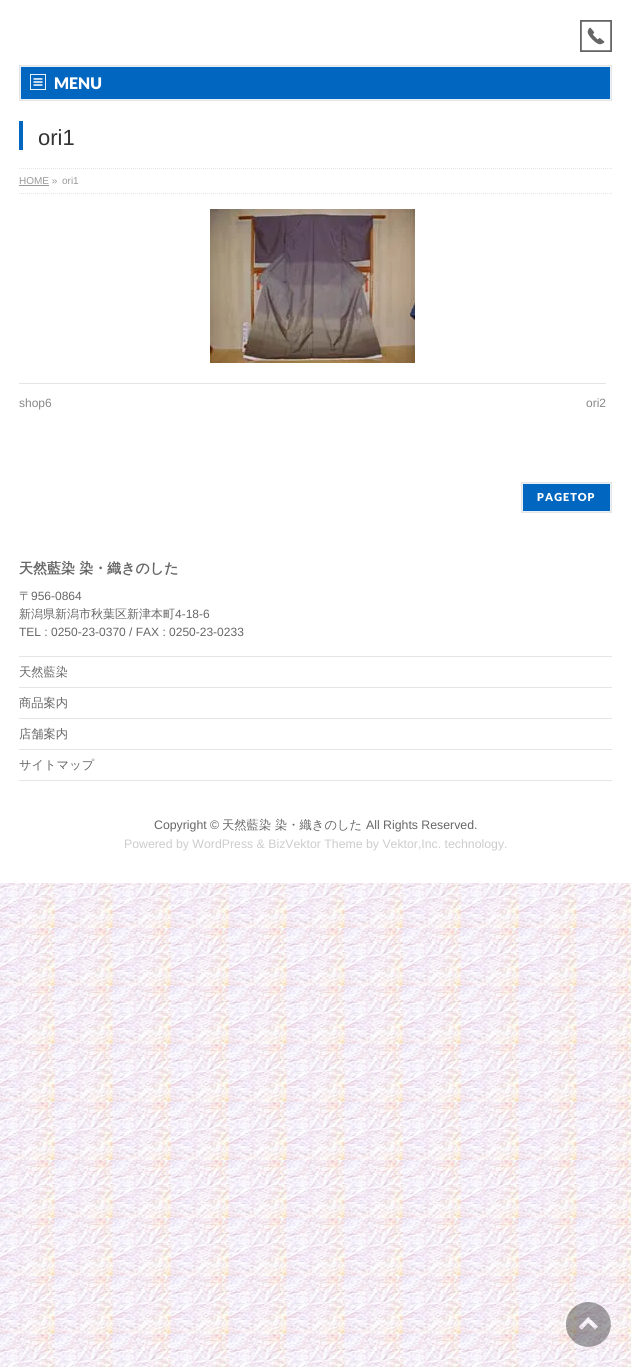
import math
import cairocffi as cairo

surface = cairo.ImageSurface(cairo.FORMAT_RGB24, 631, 1367)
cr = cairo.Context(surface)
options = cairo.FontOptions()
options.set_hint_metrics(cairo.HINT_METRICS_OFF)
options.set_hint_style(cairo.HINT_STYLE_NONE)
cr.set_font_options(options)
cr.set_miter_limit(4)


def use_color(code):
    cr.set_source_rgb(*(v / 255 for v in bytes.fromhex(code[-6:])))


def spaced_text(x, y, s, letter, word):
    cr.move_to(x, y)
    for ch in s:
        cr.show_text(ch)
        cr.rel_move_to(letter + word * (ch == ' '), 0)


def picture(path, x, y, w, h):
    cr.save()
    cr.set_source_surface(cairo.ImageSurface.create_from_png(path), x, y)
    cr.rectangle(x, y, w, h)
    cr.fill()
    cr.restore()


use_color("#ffffff")
cr.paint()
picture("img1.png", 0, 883, 631, 484)
picture("img2.png", 580, 20, 32, 32)
use_color("#0166bf")
cr.rectangle(20.5, 66.5, 590, 33)
cr.fill_preserve()
use_color("#e6f0f9")
cr.set_line_width(1)
cr.stroke()
cr.rectangle(19.5, 65.5, 592, 35)
use_color("#e5e5e5")
cr.stroke()
picture("img3.png", 30, 74, 16, 16)
cr.select_font_face("Lato Black")
cr.set_font_size(16)
use_color("#ffffff")
cr.move_to(54, 89)
cr.show_text("MENU")
use_color("#0166bf")
cr.rectangle(19, 121, 4, 29)
cr.fill()
cr.select_font_face("Liberation Sans")
cr.set_font_size(22)
use_color("#333333")
cr.move_to(38, 145)
cr.show_text("ori1")
cr.new_path()
cr.move_to(19, 168.5)
cr.line_to(612, 168.5)
use_color("#e5e5e5")
cr.set_dash([1, 1])
cr.stroke()
cr.new_path()
cr.move_to(19, 193.5)
cr.line_to(612, 193.5)
cr.stroke()
cr.set_font_size(10)
use_color("#999999")
cr.move_to(19, 184)
cr.show_text("HOME »")
cr.rectangle(19, 185, 30, 1)
cr.fill()
cr.move_to(62, 184)
cr.show_text("ori1")
picture("img4.png", 210, 209, 205, 154)
use_color("#e5e5e5")
cr.rectangle(19, 383, 587, 1)
cr.fill()
cr.set_font_size(12)
use_color("#888888")
cr.move_to(19, 407)
cr.show_text("shop6")
cr.move_to(586, 407)
cr.show_text("ori2")
use_color("#0166bf")
cr.rectangle(522.5, 483.5, 88, 28)
cr.fill_preserve()
use_color("#e6f0f9")
cr.set_dash([])
cr.stroke()
cr.rectangle(521.5, 482.5, 90, 30)
use_color("#e5e5e5")
cr.stroke()
cr.select_font_face("Lato Black")
cr.set_font_size(11)
use_color("#ffffff")
spaced_text(537, 501, "PAGETOP", 1, 0)
cr.select_font_face("WenQuanYi Zen Hei", cairo.FONT_SLANT_NORMAL, cairo.FONT_WEIGHT_BOLD)
cr.set_font_size(14)
use_color("#666666")
cr.move_to(19, 573)
cr.show_text("天然藍染 染・織きのした")
cr.select_font_face("WenQuanYi Zen Hei Medium")
cr.set_font_size(12)
cr.move_to(19, 600)
cr.show_text("〒")
cr.select_font_face("Liberation Sans")
cr.move_to(31, 600)
cr.show_text("956-0864")
cr.select_font_face("WenQuanYi Zen Hei Medium")
cr.move_to(19, 618)
cr.show_text("新潟県新潟市秋葉区新津本町")
cr.select_font_face("Liberation Sans")
cr.move_to(175, 618)
cr.show_text("4-18-6")
cr.move_to(19, 636)
cr.show_text("TEL : 0250-23-0370 / FAX : 0250-23-0233")
use_color("#e5e5e5")
cr.rectangle(19, 656, 593, 1)
cr.fill()
cr.rectangle(19, 687, 593, 1)
cr.fill()
cr.select_font_face("WenQuanYi Zen Hei Medium")
cr.set_font_size(12.25)
use_color("#666666")
cr.move_to(19, 676)
cr.show_text("天然藍染")
use_color("#e5e5e5")
cr.rectangle(19, 718, 593, 1)
cr.fill()
use_color("#666666")
cr.move_to(19, 707)
cr.show_text("商品案内")
use_color("#e5e5e5")
cr.rectangle(19, 749, 593, 1)
cr.fill()
use_color("#666666")
cr.move_to(19, 738)
cr.show_text("店舗案内")
use_color("#e5e5e5")
cr.rectangle(19, 780, 593, 1)
cr.fill()
use_color("#666666")
cr.move_to(19, 769)
cr.show_text("サイトマップ")
cr.select_font_face("Liberation Sans")
cr.set_font_size(12.3)
cr.move_to(154, 829)
cr.show_text("Copyright ©")
cr.select_font_face("WenQuanYi Zen Hei Medium")
cr.move_to(222, 829)
cr.show_text("天然藍染 染・織きのした")
cr.select_font_face("Liberation Sans")
cr.move_to(366, 829)
cr.show_text("All Rights Reserved.")
use_color("#cccccc")
cr.move_to(124, 848)
cr.show_text("Powered by WordPress & BizVektor Theme by Vektor,Inc. technology.")
picture("img5.png", 566, 1302, 45, 45)
surface.write_to_png("result.png")
